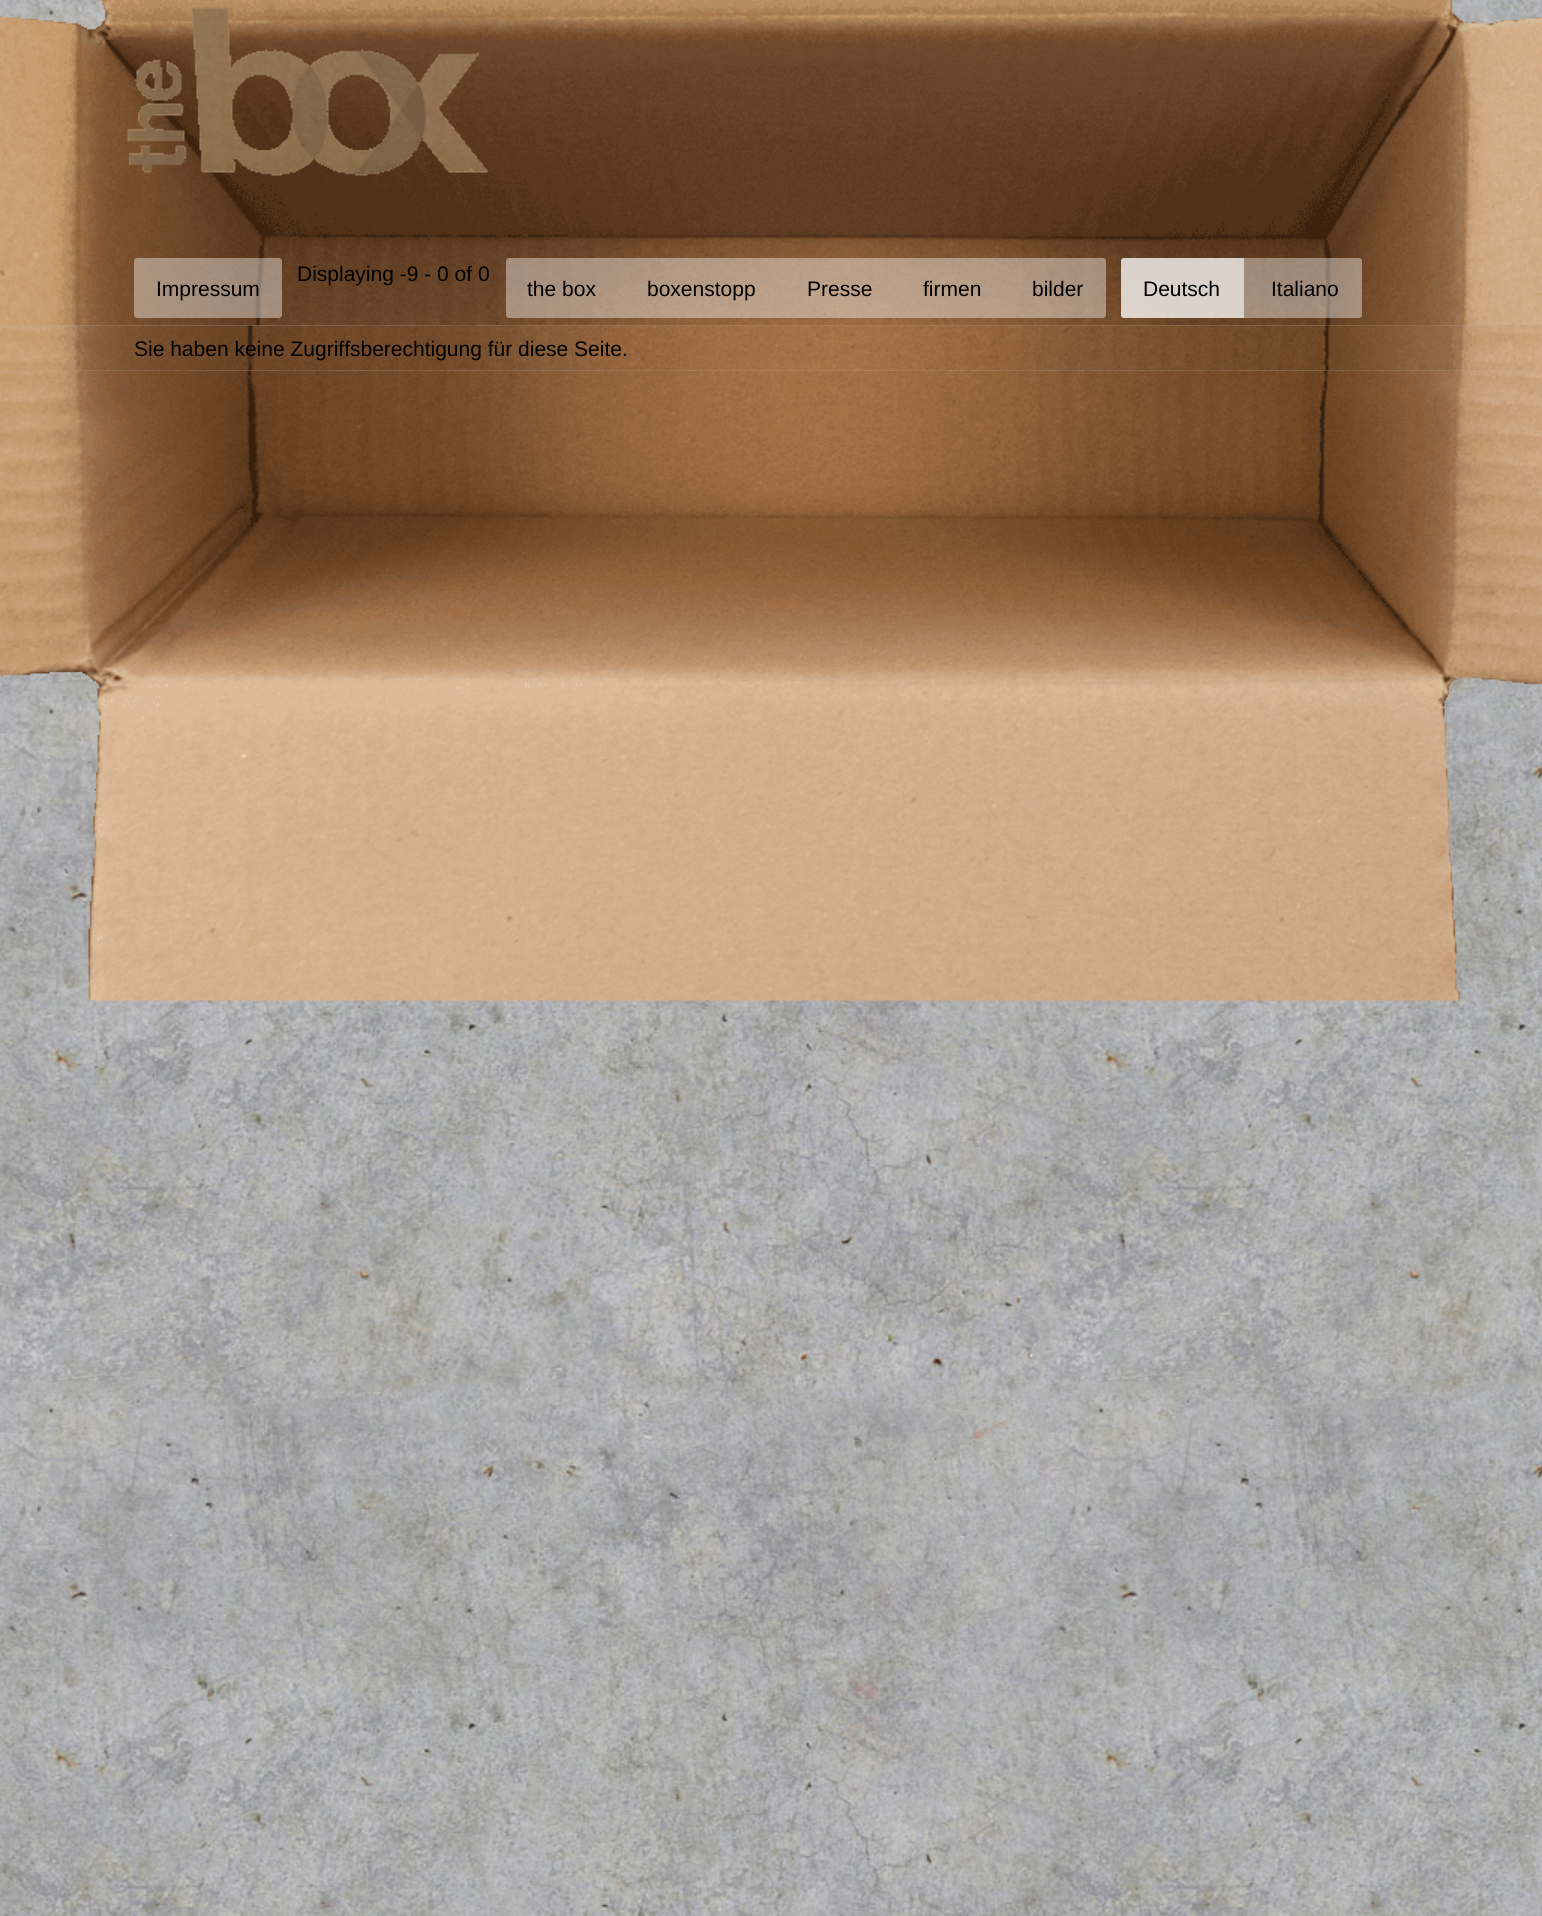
import math
import cairocffi as cairo

surface = cairo.ImageSurface(cairo.FORMAT_RGB24, 1542, 1916)
cr = cairo.Context(surface)
options = cairo.FontOptions()
options.set_hint_metrics(cairo.HINT_METRICS_OFF)
options.set_hint_style(cairo.HINT_STYLE_NONE)
cr.set_font_options(options)
cr.set_miter_limit(4)


def use_color(code):
    cr.set_source_rgb(*(v / 255 for v in bytes.fromhex(code[-6:])))


def round_rect(x, y, w, h, r):
    cr.new_sub_path()
    for i, (u, v) in enumerate([(x + w - r, y + h - r), (x + r, y + h - r), (x + r, y + r), (x + w - r, y + r)]):
        cr.arc(u, v, r, i * math.pi / 2, (i + 1) * math.pi / 2)
    cr.close_path()


def picture(path, x, y, w, h):
    cr.save()
    cr.set_source_surface(cairo.ImageSurface.create_from_png(path), x, y)
    cr.rectangle(x, y, w, h)
    cr.fill()
    cr.restore()


use_color("#ffffff")
cr.paint()
picture("img1.png", 0, 0, 1542, 1916)
picture("img2.png", 0, 0, 1542, 326)
picture("img3.png", 127, 7, 361, 169)
cr.select_font_face("Liberation Sans")
cr.set_font_size(21)
use_color("#000000")
cr.move_to(297, 281)
cr.show_text("Displaying -9 - 0 of 0")
cr.set_source_rgba(1, 1, 1, 0.4)
round_rect(134, 258, 148, 60, 3)
cr.fill()
use_color("#000000")
cr.move_to(156, 296)
cr.show_text("Impressum")
cr.set_source_rgba(1, 1, 1, 0.4)
round_rect(506, 258, 600, 60, 3)
cr.fill()
use_color("#000000")
cr.move_to(527, 296)
cr.show_text("the box")
cr.move_to(647, 296)
cr.show_text("boxenstopp")
cr.move_to(807, 296)
cr.show_text("Presse")
cr.move_to(923, 296)
cr.show_text("firmen")
cr.move_to(1032, 296)
cr.show_text("bilder")
cr.set_source_rgba(1, 1, 1, 0.4)
round_rect(1121, 258, 241, 60, 3)
cr.fill()
cr.set_source_rgba(1, 1, 1, 0.6)
cr.new_path()
cr.move_to(1124, 258)
cr.line_to(1244, 258)
cr.line_to(1244, 318)
cr.line_to(1124, 318)
cr.curve_to(1122.5, 318, 1121, 316.5, 1121, 315)
cr.line_to(1121, 261)
cr.curve_to(1121, 259.5, 1122.5, 258, 1124, 258)
cr.close_path()
cr.fill()
use_color("#000000")
cr.move_to(1143, 296)
cr.show_text("Deutsch")
cr.move_to(1271, 296)
cr.show_text("Italiano")
picture("img4.png", 0, 325, 1542, 46)
cr.move_to(134, 356)
cr.show_text("Sie haben keine Zugriffsberechtigung für diese Seite.")
picture("img5.png", 0, 370, 1542, 631)
surface.write_to_png("result.png")
